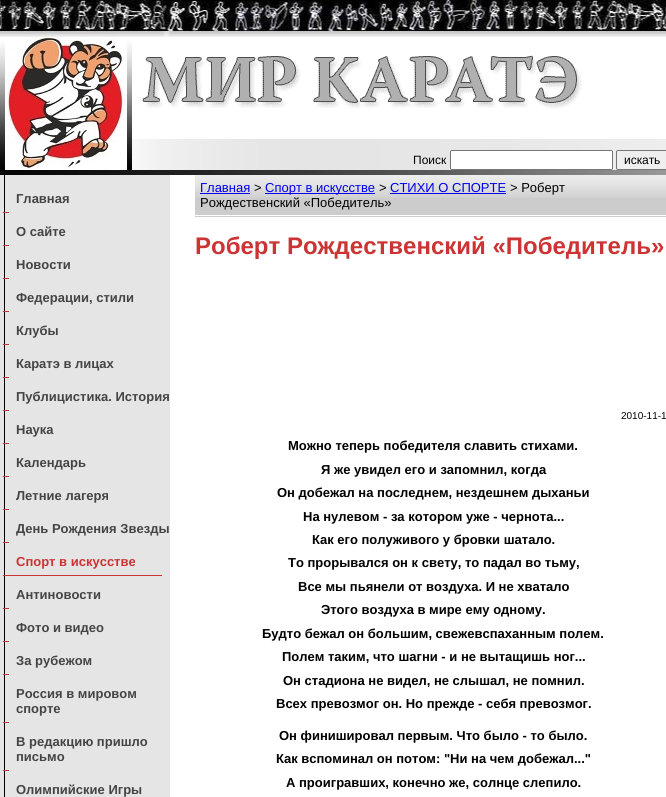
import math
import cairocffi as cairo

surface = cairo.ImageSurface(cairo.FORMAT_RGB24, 666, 797)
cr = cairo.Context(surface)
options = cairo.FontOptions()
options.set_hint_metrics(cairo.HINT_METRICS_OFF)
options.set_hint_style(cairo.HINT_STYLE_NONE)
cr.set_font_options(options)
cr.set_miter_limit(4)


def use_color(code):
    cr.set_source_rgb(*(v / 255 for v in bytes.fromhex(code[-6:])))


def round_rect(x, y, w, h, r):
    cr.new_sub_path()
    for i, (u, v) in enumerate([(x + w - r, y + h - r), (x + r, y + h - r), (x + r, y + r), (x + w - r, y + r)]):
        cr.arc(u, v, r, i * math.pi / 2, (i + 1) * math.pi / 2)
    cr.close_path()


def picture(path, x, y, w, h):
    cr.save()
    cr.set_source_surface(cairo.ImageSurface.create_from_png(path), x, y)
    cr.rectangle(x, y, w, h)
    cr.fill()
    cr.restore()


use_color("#ffffff")
cr.paint()
picture("img1.png", 0, 0, 666, 37)
picture("img2.png", 0, 42, 132, 128)
picture("img3.png", 5, 37, 122, 133)
picture("img4.png", 142, 55, 440, 54)
picture("img5.png", 132, 139, 534, 31)
cr.select_font_face("Liberation Sans")
cr.set_font_size(12)
use_color("#000000")
cr.move_to(413, 164)
cr.show_text("Поиск")
use_color("#ffffff")
round_rect(450.5, 150.5, 162, 19, 1.5)
cr.fill_preserve()
use_color("#767676")
cr.set_line_width(1)
cr.stroke()
use_color("#efefef")
round_rect(616.5, 150.5, 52, 19, 1.5)
cr.fill_preserve()
use_color("#767676")
cr.stroke()
use_color("#000000")
cr.move_to(624, 164)
cr.show_text("искать")
picture("img6.png", 0, 170, 666, 5)
use_color("#e5e5e5")
cr.rectangle(0, 175, 170, 622)
cr.fill()
use_color("#000000")
cr.rectangle(4, 175, 1, 622)
cr.fill()
cr.select_font_face("Liberation Sans", cairo.FONT_SLANT_NORMAL, cairo.FONT_WEIGHT_BOLD)
cr.set_font_size(13)
use_color("#444444")
cr.move_to(16, 203)
cr.show_text("Главная")
use_color("#cc3333")
cr.rectangle(3, 212, 6, 1)
cr.fill()
use_color("#444444")
cr.move_to(16, 236)
cr.show_text("О сайте")
use_color("#cc3333")
cr.rectangle(3, 245, 6, 1)
cr.fill()
use_color("#444444")
cr.move_to(16, 269)
cr.show_text("Новости")
use_color("#cc3333")
cr.rectangle(3, 278, 6, 1)
cr.fill()
use_color("#444444")
cr.move_to(16, 302)
cr.show_text("Федерации, стили")
use_color("#cc3333")
cr.rectangle(3, 311, 6, 1)
cr.fill()
use_color("#444444")
cr.move_to(16, 335)
cr.show_text("Клубы")
use_color("#cc3333")
cr.rectangle(3, 344, 6, 1)
cr.fill()
use_color("#444444")
cr.move_to(16, 368)
cr.show_text("Каратэ в лицах")
use_color("#cc3333")
cr.rectangle(3, 377, 6, 1)
cr.fill()
use_color("#444444")
cr.move_to(16, 401)
cr.show_text("Публицистика. История")
use_color("#cc3333")
cr.rectangle(3, 410, 6, 1)
cr.fill()
use_color("#444444")
cr.move_to(16, 434)
cr.show_text("Наука")
use_color("#cc3333")
cr.rectangle(3, 443, 6, 1)
cr.fill()
use_color("#444444")
cr.move_to(16, 467)
cr.show_text("Календарь")
use_color("#cc3333")
cr.rectangle(3, 476, 6, 1)
cr.fill()
use_color("#444444")
cr.move_to(16, 500)
cr.show_text("Летние лагеря")
use_color("#cc3333")
cr.rectangle(3, 509, 6, 1)
cr.fill()
use_color("#444444")
cr.move_to(16, 533)
cr.show_text("День Рождения Звезды")
use_color("#cc3333")
cr.rectangle(3, 542, 6, 1)
cr.fill()
cr.move_to(16, 566)
cr.show_text("Спорт в искусстве")
cr.rectangle(3, 575, 159, 1)
cr.fill()
use_color("#444444")
cr.move_to(16, 599)
cr.show_text("Антиновости")
use_color("#cc3333")
cr.rectangle(3, 608, 6, 1)
cr.fill()
use_color("#444444")
cr.move_to(16, 632)
cr.show_text("Фото и видео")
use_color("#cc3333")
cr.rectangle(3, 641, 6, 1)
cr.fill()
use_color("#444444")
cr.move_to(16, 665)
cr.show_text("За рубежом")
use_color("#cc3333")
cr.rectangle(3, 674, 6, 1)
cr.fill()
use_color("#444444")
cr.move_to(16, 698)
cr.show_text("Россия в мировом")
cr.move_to(16, 713)
cr.show_text("спорте")
use_color("#cc3333")
cr.rectangle(3, 722, 6, 1)
cr.fill()
use_color("#444444")
cr.move_to(16, 746)
cr.show_text("В редакцию пришло")
cr.move_to(16, 761)
cr.show_text("письмо")
use_color("#cc3333")
cr.rectangle(3, 770, 6, 1)
cr.fill()
use_color("#444444")
cr.move_to(16, 794)
cr.show_text("Олимпийские Игры")
use_color("#cccccc")
cr.rectangle(195, 198, 471, 17)
cr.fill()
picture("img7.png", 195, 175, 471, 23)
cr.select_font_face("Liberation Sans")
use_color("#0000ee")
cr.move_to(200, 192)
cr.show_text("Главная")
cr.rectangle(200, 193, 50, 1)
cr.fill()
use_color("#000000")
cr.move_to(254, 192)
cr.show_text(">")
use_color("#0000ee")
cr.rectangle(265, 193, 110, 1)
cr.fill()
cr.move_to(265, 192)
cr.show_text("Спорт в искусстве")
use_color("#000000")
cr.move_to(379, 192)
cr.show_text(">")
use_color("#0000ee")
cr.move_to(390, 192)
cr.show_text("СТИХИ О СПОРТЕ")
cr.rectangle(390, 193, 116, 1)
cr.fill()
use_color("#000000")
cr.move_to(510, 192)
cr.show_text("> Роберт")
cr.move_to(200, 207)
cr.show_text("Рождественский «Победитель»")
use_color("#cccccc")
cr.rectangle(195, 216, 471, 1)
cr.fill()
cr.select_font_face("Liberation Sans", cairo.FONT_SLANT_NORMAL, cairo.FONT_WEIGHT_BOLD)
cr.set_font_size(24)
use_color("#cc3333")
cr.move_to(195, 254)
cr.show_text("Роберт Рождественский «Победитель»")
cr.select_font_face("Liberation Sans")
cr.set_font_size(10)
use_color("#000000")
cr.move_to(621, 419)
cr.show_text("2010-11-1")
cr.select_font_face("Liberation Sans", cairo.FONT_SLANT_NORMAL, cairo.FONT_WEIGHT_BOLD)
cr.set_font_size(13)
cr.move_to(288, 450)
cr.show_text("Можно теперь победителя славить стихами.")
cr.move_to(321, 474)
cr.show_text("Я же увидел его и запомнил, когда")
cr.move_to(277, 497)
cr.show_text("Он добежал на последнем, нездешнем дыханьи")
cr.move_to(303, 521)
cr.show_text("На нулевом - за котором уже - чернота...")
cr.move_to(312, 544)
cr.show_text("Как его полуживого у бровки шатало.")
cr.move_to(288, 567)
cr.show_text("То прорывался он к свету, то падал во тьму,")
cr.move_to(298, 591)
cr.show_text("Все мы пьянели от воздуха. И не хватало")
cr.move_to(321, 614)
cr.show_text("Этого воздуха в мире ему одному.")
cr.move_to(262, 638)
cr.show_text("Будто бежал он большим, свежевспаханным полем.")
cr.move_to(282, 661)
cr.show_text("Полем таким, что шагни - и не вытащишь ног...")
cr.move_to(283, 685)
cr.show_text("Он стадиона не видел, не слышал, не помнил.")
cr.move_to(276, 708)
cr.show_text("Всех превозмог он. Но прежде - себя превозмог.")
cr.move_to(279, 740)
cr.show_text("Он финишировал первым. Что было - то было.")
cr.move_to(276, 763)
cr.show_text("Как вспоминал он потом: \"Ни на чем добежал...\"")
cr.move_to(286, 787)
cr.show_text("А проигравших, конечно же, солнце слепило.")
surface.write_to_png("result.png")
